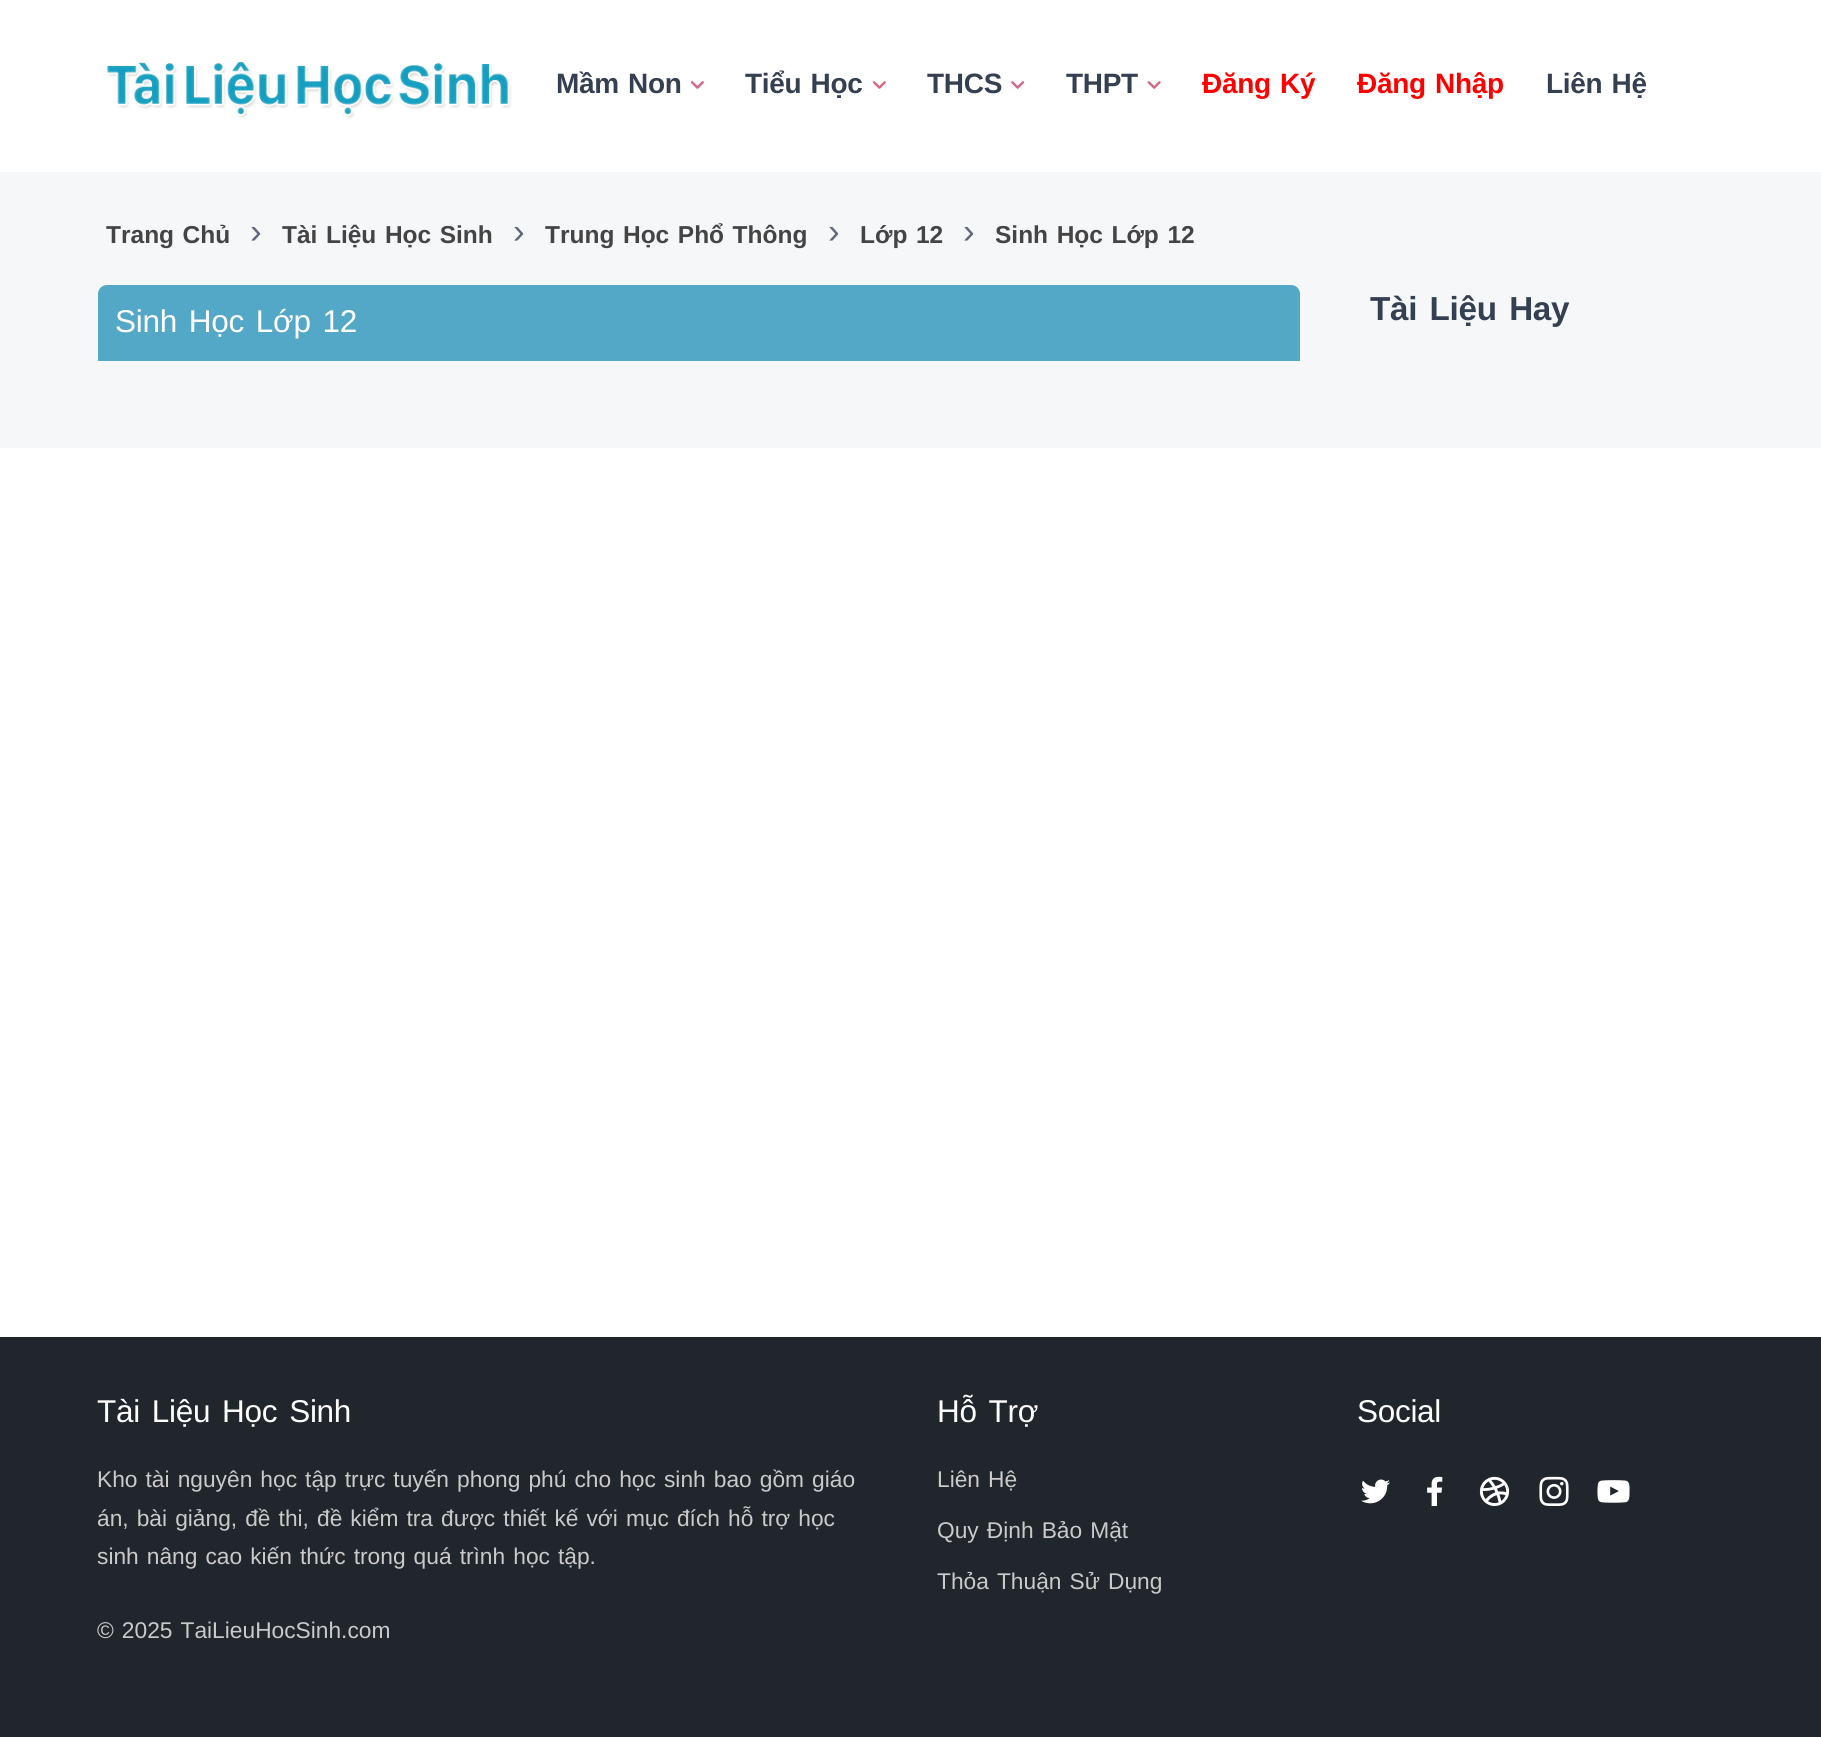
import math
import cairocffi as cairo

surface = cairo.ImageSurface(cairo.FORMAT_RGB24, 1821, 1737)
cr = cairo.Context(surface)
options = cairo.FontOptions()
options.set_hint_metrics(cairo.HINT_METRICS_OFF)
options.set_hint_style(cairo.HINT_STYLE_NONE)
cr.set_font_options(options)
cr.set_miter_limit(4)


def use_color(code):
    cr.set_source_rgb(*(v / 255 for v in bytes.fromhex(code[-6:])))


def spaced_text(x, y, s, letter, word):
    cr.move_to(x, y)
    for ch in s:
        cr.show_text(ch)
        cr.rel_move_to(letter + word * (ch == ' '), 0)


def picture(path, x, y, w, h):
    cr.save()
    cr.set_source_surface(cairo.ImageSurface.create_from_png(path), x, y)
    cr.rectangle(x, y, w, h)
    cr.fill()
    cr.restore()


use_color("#ffffff")
cr.paint()
picture("img1.png", 107, 62, 405, 57)
cr.select_font_face("Liberation Sans", cairo.FONT_SLANT_NORMAL, cairo.FONT_WEIGHT_BOLD)
cr.set_font_size(28)
use_color("#343f52")
spaced_text(556, 93, "Mầm Non", -0.3, 1.75)
picture("img2.png", 690, 81, 14, 8)
spaced_text(745, 93, "Tiểu Học", -0.3, 1.75)
picture("img2.png", 872, 81, 14, 8)
spaced_text(927, 93, "THCS", -0.3, 0)
picture("img3.png", 1011, 81, 14, 8)
spaced_text(1066, 93, "THPT", -0.3, 0)
picture("img4.png", 1147, 81, 14, 8)
use_color("#ff0000")
spaced_text(1202, 93, "Đăng Ký", -0.3, 1.75)
spaced_text(1357, 93, "Đăng Nhập", -0.3, 1.75)
use_color("#343f52")
spaced_text(1546, 93, "Liên Hệ", -0.3, 1.75)
use_color("#f6f7f9")
cr.rectangle(0, 172, 1821, 276)
cr.fill()
cr.set_font_size(24.5)
use_color("#444444")
spaced_text(106, 243, "Trang Chủ", 0, 1.75)
cr.select_font_face("Liberation Sans")
cr.set_font_size(35)
use_color("#60697b")
cr.move_to(250, 243)
cr.show_text("›")
cr.select_font_face("Liberation Sans", cairo.FONT_SLANT_NORMAL, cairo.FONT_WEIGHT_BOLD)
cr.set_font_size(24.5)
use_color("#444444")
spaced_text(282, 243, "Tài Liệu Học Sinh", 0, 1.75)
cr.select_font_face("Liberation Sans")
cr.set_font_size(35)
use_color("#60697b")
cr.move_to(513, 243)
cr.show_text("›")
cr.select_font_face("Liberation Sans", cairo.FONT_SLANT_NORMAL, cairo.FONT_WEIGHT_BOLD)
cr.set_font_size(24.5)
use_color("#444444")
spaced_text(545, 243, "Trung Học Phổ Thông", 0, 1.75)
cr.select_font_face("Liberation Sans")
cr.set_font_size(35)
use_color("#60697b")
cr.move_to(828, 243)
cr.show_text("›")
cr.select_font_face("Liberation Sans", cairo.FONT_SLANT_NORMAL, cairo.FONT_WEIGHT_BOLD)
cr.set_font_size(24.5)
use_color("#444444")
spaced_text(860, 243, "Lớp 12", 0, 1.75)
cr.select_font_face("Liberation Sans")
cr.set_font_size(35)
use_color("#60697b")
cr.move_to(963, 243)
cr.show_text("›")
cr.select_font_face("Liberation Sans", cairo.FONT_SLANT_NORMAL, cairo.FONT_WEIGHT_BOLD)
cr.set_font_size(24.5)
use_color("#444444")
spaced_text(995, 243, "Sinh Học Lớp 12", 0, 1.75)
use_color("#54a8c7")
cr.new_path()
cr.move_to(107, 285)
cr.line_to(1291, 285)
cr.curve_to(1296, 285, 1300, 289, 1300, 294)
cr.line_to(1300, 361)
cr.line_to(98, 361)
cr.line_to(98, 294)
cr.curve_to(98, 289, 102, 285, 107, 285)
cr.close_path()
cr.fill()
cr.select_font_face("Liberation Sans")
cr.set_font_size(31.5)
use_color("#ffffff")
spaced_text(115, 332, "Sinh Học Lớp 12", -0.3, 3.5)
cr.select_font_face("Liberation Sans", cairo.FONT_SLANT_NORMAL, cairo.FONT_WEIGHT_BOLD)
cr.set_font_size(33.25)
use_color("#343f52")
spaced_text(1370, 320, "Tài Liệu Hay", -0.3, 3.5)
use_color("#21262c")
cr.rectangle(0, 1337, 1821, 400)
cr.fill()
cr.select_font_face("Liberation Sans")
cr.set_font_size(31.5)
use_color("#ffffff")
spaced_text(97, 1422, "Tài Liệu Học Sinh", -0.3, 3.5)
cr.set_font_size(22.75)
use_color("#cacaca")
spaced_text(97, 1487, "Kho tài nguyên học tập trực tuyến phong phú cho học sinh bao gồm giáo", 0, 1.75)
spaced_text(97, 1526, "án, bài giảng, đề thi, đề kiểm tra được thiết kế với mục đích hỗ trợ học", 0, 1.75)
spaced_text(97, 1564, "sinh nâng cao kiến thức trong quá trình học tập.", 0, 1.75)
spaced_text(97, 1638, "© 2025 TaiLieuHocSinh.com", 0, 1.75)
cr.set_font_size(31.5)
use_color("#ffffff")
spaced_text(937, 1422, "Hỗ Trợ", -0.3, 3.5)
cr.set_font_size(22.75)
use_color("#cacaca")
spaced_text(937, 1487, "Liên Hệ", 0, 1.75)
spaced_text(937, 1538, "Quy Định Bảo Mật", 0, 1.75)
spaced_text(937, 1589, "Thỏa Thuận Sử Dụng", 0, 1.75)
cr.set_font_size(31.5)
use_color("#ffffff")
spaced_text(1357, 1422, "Social", -0.3, 0)
picture("img5.png", 1361, 1479, 29, 25)
picture("img6.png", 1427, 1476, 16, 30)
picture("img7.png", 1479, 1476, 31, 30)
picture("img8.png", 1539, 1476, 30, 30)
picture("img9.png", 1597, 1480, 33, 23)
surface.write_to_png("result.png")
